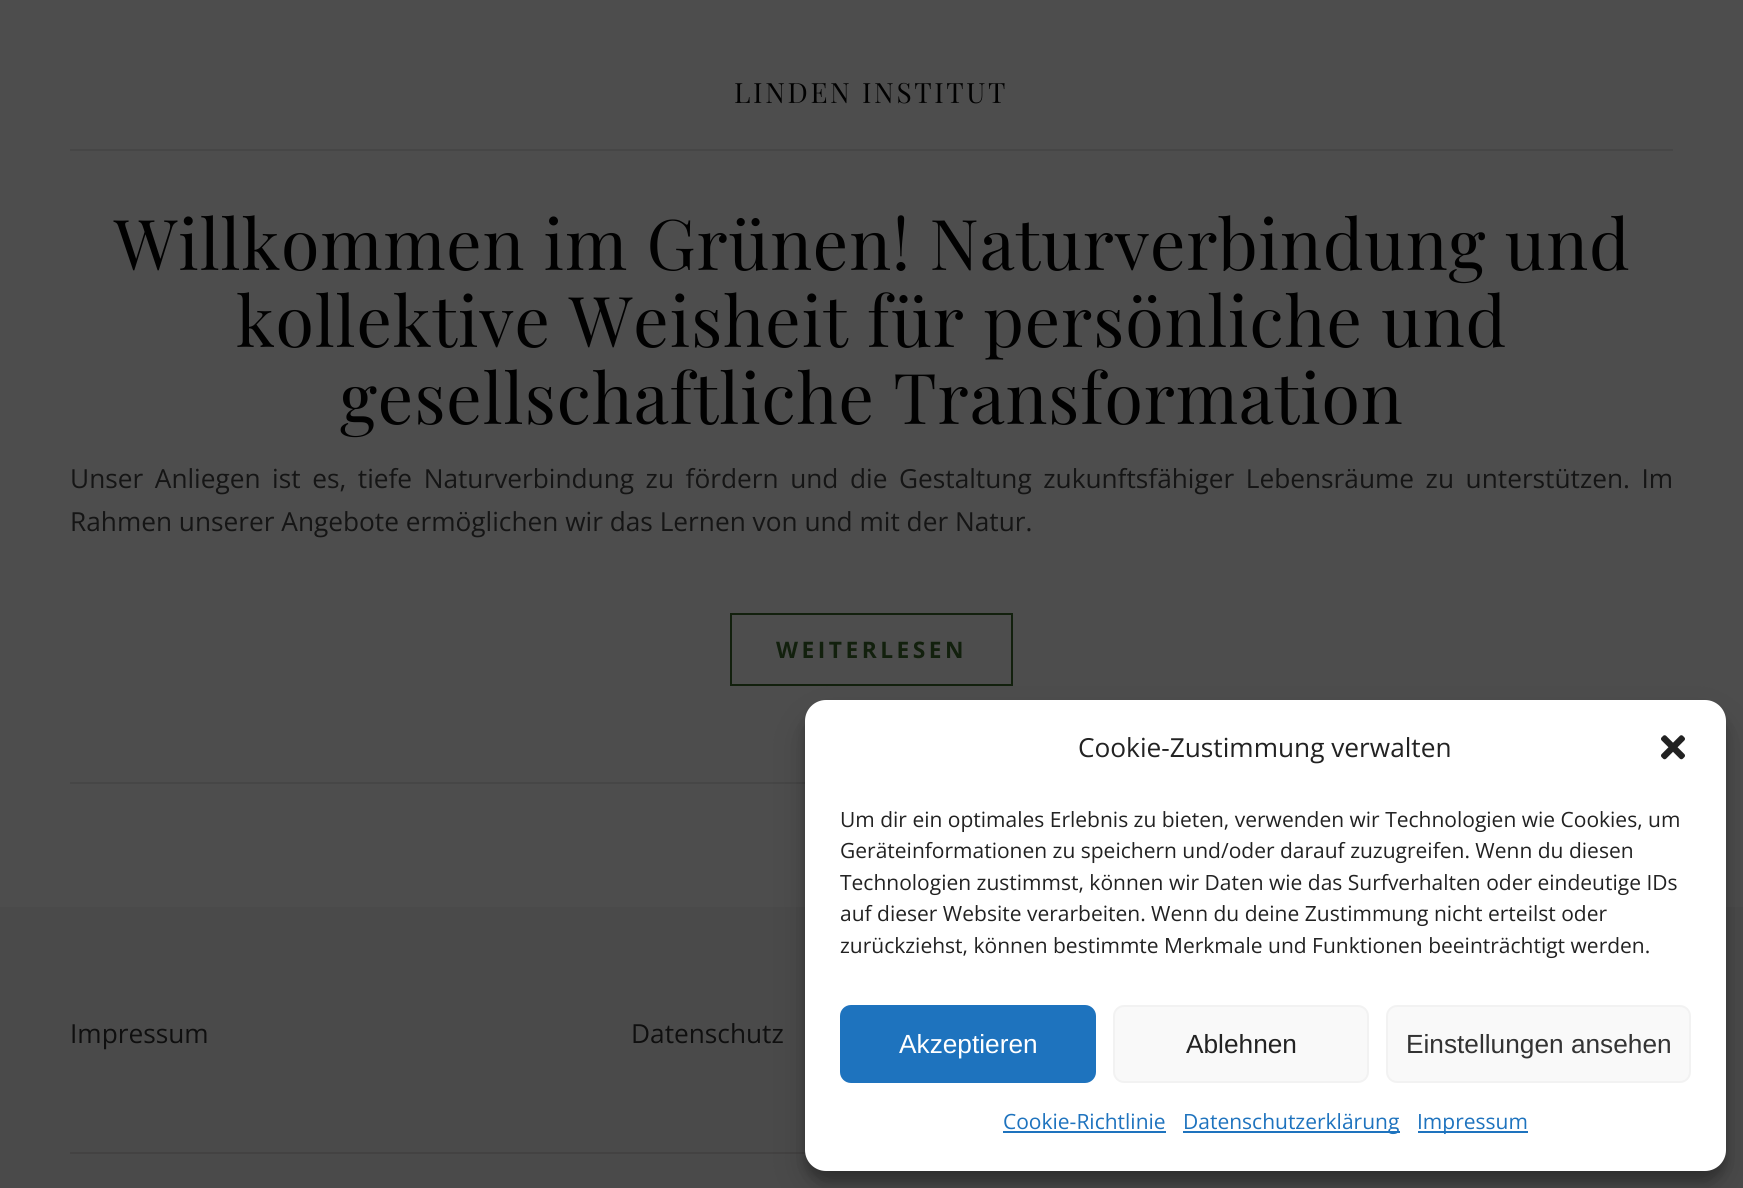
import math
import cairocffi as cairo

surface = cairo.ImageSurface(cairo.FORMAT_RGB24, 1743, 1188)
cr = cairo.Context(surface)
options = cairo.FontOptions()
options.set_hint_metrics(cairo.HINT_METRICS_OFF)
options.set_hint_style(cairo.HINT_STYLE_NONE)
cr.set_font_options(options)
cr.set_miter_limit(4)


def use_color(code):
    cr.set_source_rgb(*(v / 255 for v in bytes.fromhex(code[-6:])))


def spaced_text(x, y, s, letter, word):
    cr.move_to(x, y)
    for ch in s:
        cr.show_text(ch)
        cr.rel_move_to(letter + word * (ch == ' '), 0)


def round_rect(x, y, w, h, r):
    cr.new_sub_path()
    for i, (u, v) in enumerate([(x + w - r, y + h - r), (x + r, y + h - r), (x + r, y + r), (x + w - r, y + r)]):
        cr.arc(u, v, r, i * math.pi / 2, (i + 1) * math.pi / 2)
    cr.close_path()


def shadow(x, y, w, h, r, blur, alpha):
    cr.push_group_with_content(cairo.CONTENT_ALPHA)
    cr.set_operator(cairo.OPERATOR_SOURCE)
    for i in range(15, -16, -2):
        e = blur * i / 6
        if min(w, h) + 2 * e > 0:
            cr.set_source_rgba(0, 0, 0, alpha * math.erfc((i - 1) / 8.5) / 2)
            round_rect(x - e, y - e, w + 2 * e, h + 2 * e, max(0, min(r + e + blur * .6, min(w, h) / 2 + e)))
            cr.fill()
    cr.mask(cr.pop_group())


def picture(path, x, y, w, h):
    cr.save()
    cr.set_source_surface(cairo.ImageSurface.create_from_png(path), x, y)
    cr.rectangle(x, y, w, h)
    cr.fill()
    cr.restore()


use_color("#4d4d4d")
cr.paint()
use_color("#464646")
cr.rectangle(70, 149, 1603, 2)
cr.fill()
cr.select_font_face("Playfair Display")
cr.set_font_size(28)
use_color("#010101")
spaced_text(734, 103, "LINDEN INSTITUT", 2.6, 0)
cr.set_font_size(70)
spaced_text(114, 270, "Willkommen im Grünen! Naturverbindung und", 0.9, 0)
spaced_text(236, 347, "kollektive Weisheit für persönliche und", 0.9, 0)
spaced_text(340, 424, "gesellschaftliche Transformation", 0.9, 0)
cr.select_font_face("Open Sans")
cr.set_font_size(26.25)
use_color("#151515")
spaced_text(70, 488, "Unser Anliegen ist es, tiefe Naturverbindung zu fördern und die Gestaltung zukunftsfähiger Lebensräume zu unterstützen. Im", 0, 4.75)
cr.move_to(70, 531)
cr.show_text("Rahmen unserer Angebote ermöglichen wir das Lernen von und mit der Natur.")
cr.rectangle(731, 614, 281, 71)
use_color("#12200d")
cr.stroke()
cr.select_font_face("Open Sans", cairo.FONT_SLANT_NORMAL, cairo.FONT_WEIGHT_BOLD)
cr.set_font_size(22.75)
spaced_text(776, 658, "WEITERLESEN", 3.5, 0)
use_color("#464646")
cr.rectangle(70, 782, 735, 2)
cr.fill()
use_color("#4a4a4a")
cr.rectangle(0, 907, 1743, 281)
cr.fill()
use_color("#434242")
cr.rectangle(70, 1152, 736, 2)
cr.fill()
cr.select_font_face("Open Sans")
cr.set_font_size(26.25)
use_color("#0f0f0f")
cr.move_to(70, 1043)
cr.show_text("Impressum")
cr.move_to(631, 1043)
cr.show_text("Datenschutz")
use_color("#000000")
shadow(805, 711, 921, 470, 21, 5, 0.23)
shadow(805, 718, 921, 470, 21, 17.5, 0.19)
use_color("#ffffff")
round_rect(805, 700, 921, 471, 21)
cr.fill()
use_color("#222222")
cr.move_to(1078, 757)
cr.show_text("Cookie-Zustimmung verwalten")
picture("img1.png", 1661, 735, 24, 25)
cr.set_font_size(21)
cr.move_to(840, 827)
cr.show_text("Um dir ein optimales Erlebnis zu bieten, verwenden wir Technologien wie Cookies, um")
cr.move_to(840, 858)
cr.show_text("Geräteinformationen zu speichern und/oder darauf zuzugreifen. Wenn du diesen")
cr.move_to(840, 890)
cr.show_text("Technologien zustimmst, können wir Daten wie das Surfverhalten oder eindeutige IDs")
cr.move_to(840, 921)
cr.show_text("auf dieser Website verarbeiten. Wenn du deine Zustimmung nicht erteilst oder")
cr.move_to(840, 953)
cr.show_text("zurückziehst, können bestimmte Merkmale und Funktionen beeinträchtigt werden.")
use_color("#1e73be")
round_rect(841, 1006, 254, 76, 10)
cr.fill_preserve()
cr.stroke()
cr.select_font_face("Liberation Sans")
cr.set_font_size(26.25)
use_color("#ffffff")
cr.move_to(899, 1053)
cr.show_text("Akzeptieren")
use_color("#f9f9f9")
round_rect(1114, 1006, 254, 76, 10)
cr.fill_preserve()
use_color("#f2f2f2")
cr.stroke()
use_color("#222222")
cr.move_to(1186, 1053)
cr.show_text("Ablehnen")
use_color("#f9f9f9")
round_rect(1387, 1006, 303, 76, 10)
cr.fill_preserve()
use_color("#f2f2f2")
cr.stroke()
use_color("#333333")
cr.move_to(1406, 1053)
cr.show_text("Einstellungen ansehen")
cr.select_font_face("Open Sans")
cr.set_font_size(21)
use_color("#1e73be")
cr.move_to(1003, 1129)
cr.show_text("Cookie-Richtlinie")
cr.rectangle(1003, 1131, 163, 2)
cr.fill()
cr.rectangle(1183, 1131, 217, 2)
cr.fill()
cr.move_to(1183, 1129)
cr.show_text("Datenschutzerklärung")
cr.rectangle(1418, 1131, 110, 2)
cr.fill()
cr.move_to(1417, 1129)
cr.show_text("Impressum")
surface.write_to_png("result.png")
